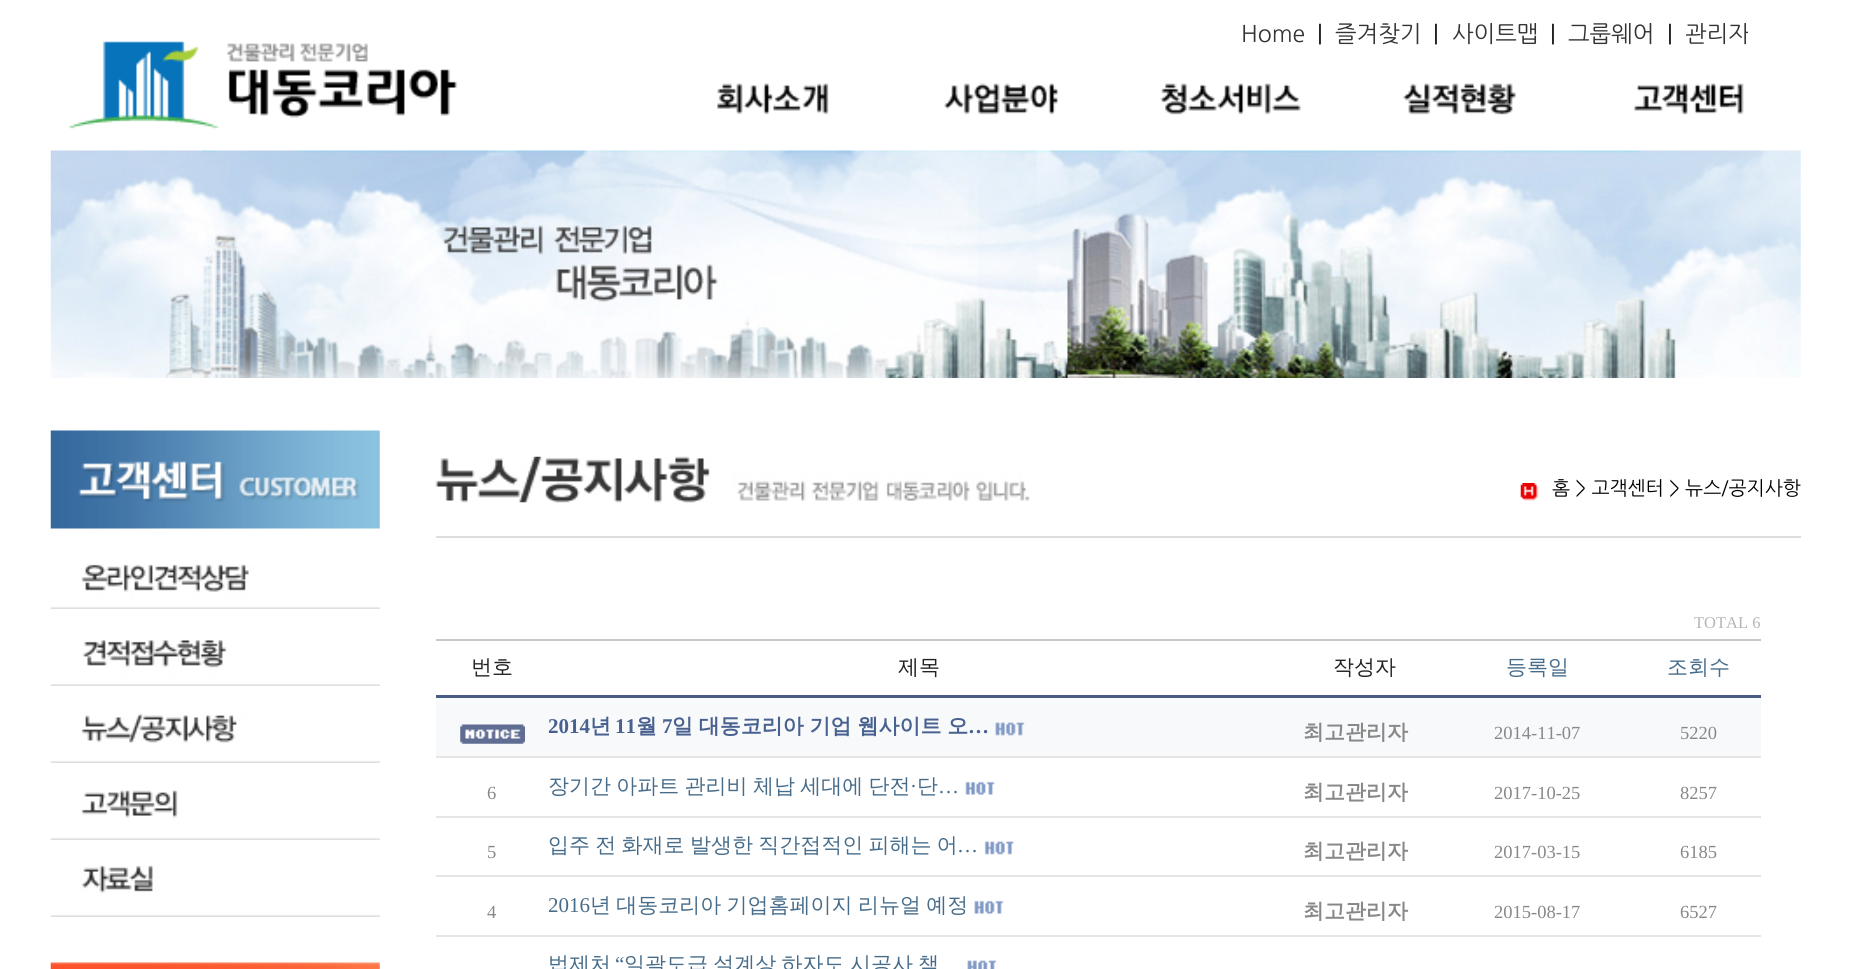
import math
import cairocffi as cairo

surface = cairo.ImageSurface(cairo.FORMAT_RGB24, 1850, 969)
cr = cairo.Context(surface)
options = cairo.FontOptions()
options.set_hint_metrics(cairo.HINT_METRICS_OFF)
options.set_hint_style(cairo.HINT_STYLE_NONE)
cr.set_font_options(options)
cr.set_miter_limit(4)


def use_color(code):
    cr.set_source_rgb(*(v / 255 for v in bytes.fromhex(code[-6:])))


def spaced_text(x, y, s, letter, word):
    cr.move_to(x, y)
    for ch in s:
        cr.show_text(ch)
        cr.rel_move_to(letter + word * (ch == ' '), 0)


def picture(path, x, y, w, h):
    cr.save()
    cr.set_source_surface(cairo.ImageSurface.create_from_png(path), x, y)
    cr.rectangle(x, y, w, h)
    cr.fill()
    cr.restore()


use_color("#ffffff")
cr.paint()
picture("img1.png", 50, 150, 1751, 228)
cr.select_font_face("NanumGothic")
cr.set_font_size(23)
use_color("#333333")
cr.move_to(1241, 42)
cr.show_text("Home")
use_color("#000000")
cr.move_to(1317, 42)
cr.show_text("|")
use_color("#333333")
cr.move_to(1335, 42)
cr.show_text("즐겨찾기")
use_color("#000000")
cr.move_to(1433, 42)
cr.show_text("|")
use_color("#333333")
cr.move_to(1452, 42)
cr.show_text("사이트맵")
use_color("#000000")
cr.move_to(1550, 42)
cr.show_text("|")
use_color("#333333")
cr.move_to(1568, 42)
cr.show_text("그룹웨어")
use_color("#000000")
cr.move_to(1667, 42)
cr.show_text("|")
cr.save()
cr.rectangle(1241, 23, 507, 23)
cr.clip()
use_color("#333333")
cr.move_to(1685, 42)
cr.show_text("관리자")
cr.restore()
picture("img2.png", 68, 41, 390, 88)
picture("img3.png", 717, 83, 112, 32)
picture("img4.png", 944, 83, 115, 32)
picture("img5.png", 1160, 83, 141, 32)
picture("img6.png", 1403, 83, 113, 32)
picture("img7.png", 1634, 83, 110, 32)
picture("img8.png", 50, 430, 330, 99)
picture("img9.png", 50, 564, 330, 45)
picture("img10.png", 50, 640, 330, 46)
picture("img11.png", 50, 713, 330, 50)
picture("img12.png", 50, 790, 330, 50)
picture("img13.png", 50, 865, 330, 52)
picture("img14.png", 50, 962, 330, 7)
use_color("#dddddd")
cr.rectangle(436, 536, 1365, 2)
cr.fill()
picture("img15.png", 435, 456, 595, 47)
picture("img16.png", 1520, 483, 19, 18)
cr.set_font_size(19.25)
use_color("#000000")
cr.move_to(1552, 495)
cr.show_text("홈 > 고객센터 > 뉴스/공지사항")
cr.select_font_face("Liberation Serif")
cr.set_font_size(16.5)
use_color("#b5b5b5")
cr.move_to(1694, 628)
cr.show_text("TOTAL 6")
use_color("#c7c7c7")
cr.rectangle(436, 639, 1325, 2)
cr.fill()
cr.select_font_face("WenQuanYi Zen Hei Medium")
cr.set_font_size(21)
use_color("#222222")
cr.move_to(471, 674)
cr.show_text("번호")
cr.move_to(898, 674)
cr.show_text("제목")
cr.move_to(1333, 674)
cr.show_text("작성자")
use_color("#466c8a")
cr.move_to(1506, 674)
cr.show_text("등록일")
cr.move_to(1667, 674)
cr.show_text("조회수")
use_color("#495d84")
cr.rectangle(436, 695, 1325, 3)
cr.fill()
use_color("#f8f9fa")
cr.rectangle(436, 698, 1325, 58)
cr.fill()
picture("img17.png", 460, 724, 65, 20)
cr.select_font_face("Liberation Serif", cairo.FONT_SLANT_NORMAL, cairo.FONT_WEIGHT_BOLD)
use_color("#486190")
cr.move_to(548, 733)
cr.show_text("2014")
cr.select_font_face("WenQuanYi Zen Hei", cairo.FONT_SLANT_NORMAL, cairo.FONT_WEIGHT_BOLD)
cr.move_to(590, 733)
cr.show_text("년")
cr.select_font_face("Liberation Serif", cairo.FONT_SLANT_NORMAL, cairo.FONT_WEIGHT_BOLD)
cr.move_to(615, 733)
cr.show_text("11")
cr.select_font_face("WenQuanYi Zen Hei", cairo.FONT_SLANT_NORMAL, cairo.FONT_WEIGHT_BOLD)
cr.move_to(636, 733)
cr.show_text("월")
cr.select_font_face("Liberation Serif", cairo.FONT_SLANT_NORMAL, cairo.FONT_WEIGHT_BOLD)
cr.move_to(662, 733)
cr.show_text("7")
cr.select_font_face("WenQuanYi Zen Hei", cairo.FONT_SLANT_NORMAL, cairo.FONT_WEIGHT_BOLD)
spaced_text(672, 733, "일 대동코리아 기업 웹사이트 오", 0, -0.5)
cr.select_font_face("Liberation Serif", cairo.FONT_SLANT_NORMAL, cairo.FONT_WEIGHT_BOLD)
cr.move_to(968, 733)
cr.show_text("…")
picture("img18.png", 995, 722, 30, 14)
cr.select_font_face("WenQuanYi Zen Hei", cairo.FONT_SLANT_NORMAL, cairo.FONT_WEIGHT_BOLD)
use_color("#888888")
cr.move_to(1303, 739)
cr.show_text("최고관리자")
cr.select_font_face("Liberation Serif")
cr.set_font_size(18.5)
cr.move_to(1494, 739)
cr.show_text("2014-11-07")
cr.move_to(1680, 739)
cr.show_text("5220")
use_color("#e5e5e5")
cr.rectangle(436, 756, 1325, 2)
cr.fill()
use_color("#888888")
cr.move_to(487, 799)
cr.show_text("6")
cr.select_font_face("WenQuanYi Zen Hei Medium")
cr.set_font_size(21)
use_color("#466c8a")
spaced_text(548, 793, "장기간 아파트 관리비 체납 세대에 단전", 0, -1)
cr.select_font_face("Liberation Serif")
cr.move_to(910, 793)
cr.show_text("·")
cr.select_font_face("WenQuanYi Zen Hei Medium")
cr.move_to(917, 793)
cr.show_text("단")
picture("img19.png", 965, 781, 30, 14)
cr.select_font_face("Liberation Serif")
cr.move_to(938, 793)
cr.show_text("…")
cr.select_font_face("WenQuanYi Zen Hei", cairo.FONT_SLANT_NORMAL, cairo.FONT_WEIGHT_BOLD)
use_color("#888888")
cr.move_to(1303, 799)
cr.show_text("최고관리자")
cr.select_font_face("Liberation Serif")
cr.set_font_size(18.5)
cr.move_to(1494, 799)
cr.show_text("2017-10-25")
cr.move_to(1680, 799)
cr.show_text("8257")
use_color("#e5e5e5")
cr.rectangle(436, 816, 1325, 2)
cr.fill()
use_color("#888888")
cr.move_to(487, 858)
cr.show_text("5")
cr.select_font_face("WenQuanYi Zen Hei Medium")
cr.set_font_size(21)
use_color("#466c8a")
spaced_text(548, 852, "입주 전 화재로 발생한 직간접적인 피해는 어", 0, -1)
cr.select_font_face("Liberation Serif")
cr.move_to(957, 852)
cr.show_text("…")
picture("img20.png", 984, 841, 30, 14)
cr.select_font_face("WenQuanYi Zen Hei", cairo.FONT_SLANT_NORMAL, cairo.FONT_WEIGHT_BOLD)
use_color("#888888")
cr.move_to(1303, 858)
cr.show_text("최고관리자")
cr.select_font_face("Liberation Serif")
cr.set_font_size(18.5)
cr.move_to(1494, 858)
cr.show_text("2017-03-15")
cr.move_to(1680, 858)
cr.show_text("6185")
use_color("#e5e5e5")
cr.rectangle(436, 875, 1325, 2)
cr.fill()
use_color("#888888")
cr.move_to(487, 918)
cr.show_text("4")
cr.set_font_size(21)
use_color("#466c8a")
cr.move_to(548, 912)
cr.show_text("2016")
cr.select_font_face("WenQuanYi Zen Hei Medium")
spaced_text(590, 912, "년 대동코리아 기업홈페이지 리뉴얼 예정", 0, -1)
picture("img21.png", 974, 900, 30, 14)
cr.select_font_face("WenQuanYi Zen Hei", cairo.FONT_SLANT_NORMAL, cairo.FONT_WEIGHT_BOLD)
use_color("#888888")
cr.move_to(1303, 918)
cr.show_text("최고관리자")
cr.select_font_face("Liberation Serif")
cr.set_font_size(18.5)
cr.move_to(1494, 918)
cr.show_text("2015-08-17")
cr.move_to(1680, 918)
cr.show_text("6527")
use_color("#e5e5e5")
cr.rectangle(436, 935, 1325, 2)
cr.fill()
cr.select_font_face("WenQuanYi Zen Hei Medium")
cr.set_font_size(21)
use_color("#466c8a")
cr.move_to(548, 971)
cr.show_text("법제처")
cr.select_font_face("Liberation Serif")
cr.move_to(615, 971)
cr.show_text("“")
cr.select_font_face("WenQuanYi Zen Hei Medium")
spaced_text(624, 971, "일괄도급 설계상 하자도 시공사 책", 0, -1)
picture("img22.png", 967, 960, 30, 9)
surface.write_to_png("result.png")
